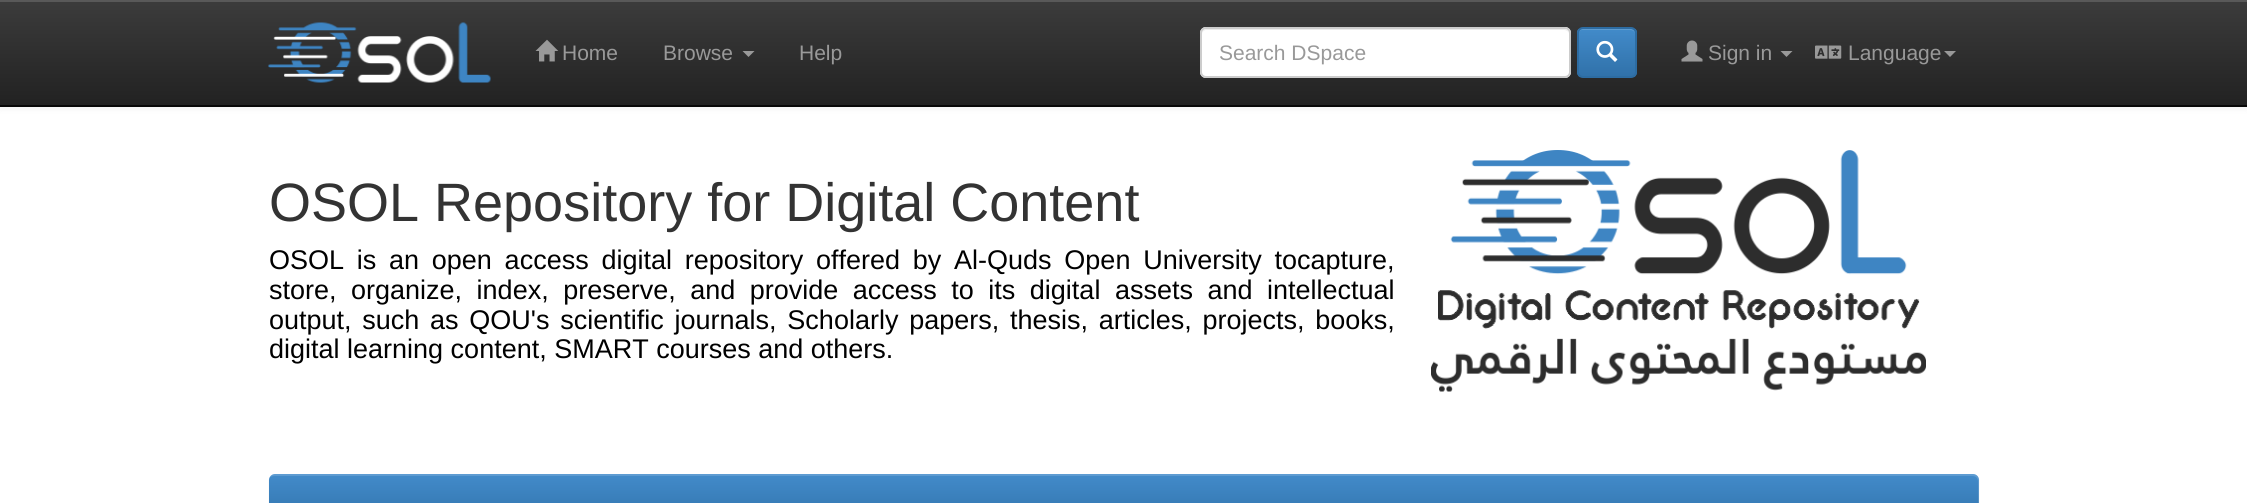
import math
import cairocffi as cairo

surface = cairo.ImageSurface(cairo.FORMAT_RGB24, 2247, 503)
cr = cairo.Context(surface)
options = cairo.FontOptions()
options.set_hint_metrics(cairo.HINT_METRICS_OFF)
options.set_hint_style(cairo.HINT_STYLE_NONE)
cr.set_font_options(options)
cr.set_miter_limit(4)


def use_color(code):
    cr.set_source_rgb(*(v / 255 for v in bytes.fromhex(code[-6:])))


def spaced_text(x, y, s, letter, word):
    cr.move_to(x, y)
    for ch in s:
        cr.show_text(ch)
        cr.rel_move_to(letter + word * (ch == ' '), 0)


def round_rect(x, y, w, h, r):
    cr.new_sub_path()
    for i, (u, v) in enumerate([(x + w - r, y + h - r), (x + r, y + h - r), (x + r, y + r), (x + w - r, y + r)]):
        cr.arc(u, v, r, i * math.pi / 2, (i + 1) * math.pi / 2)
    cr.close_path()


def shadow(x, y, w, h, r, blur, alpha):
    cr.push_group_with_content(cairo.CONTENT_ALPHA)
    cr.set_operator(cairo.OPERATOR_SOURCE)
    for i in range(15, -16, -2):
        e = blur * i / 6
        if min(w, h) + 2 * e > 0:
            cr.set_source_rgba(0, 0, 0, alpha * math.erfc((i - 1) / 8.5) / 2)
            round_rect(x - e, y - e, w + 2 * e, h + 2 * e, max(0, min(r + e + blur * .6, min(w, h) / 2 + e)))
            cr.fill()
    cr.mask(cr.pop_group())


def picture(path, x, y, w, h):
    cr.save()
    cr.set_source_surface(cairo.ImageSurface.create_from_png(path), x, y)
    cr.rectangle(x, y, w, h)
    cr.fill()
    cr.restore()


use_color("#ffffff")
cr.paint()
use_color("#000000")
shadow(0, 2, 2247, 106, 0, 4, 0.07)
gradient = cairo.LinearGradient(1124, 0, 1124, 105)
gradient.add_color_stop_rgba(0, 0.235, 0.235, 0.235, 1)
gradient.add_color_stop_rgba(1, 0.133, 0.133, 0.133, 1)
cr.set_source(gradient)
cr.rectangle(0, 2, 2247, 103)
cr.fill()
use_color("#595959")
cr.rectangle(0, 0, 2247, 2)
cr.fill()
use_color("#080808")
cr.rectangle(0, 105, 2247, 2)
cr.fill()
picture("img1.png", 268, 22, 223, 61)
picture("img2.png", 535, 39, 24, 23)
cr.select_font_face("Liberation Sans")
cr.set_font_size(21)
use_color("#999999")
cr.move_to(562, 60)
cr.show_text("Home")
cr.move_to(663, 60)
cr.show_text("Browse")
cr.new_path()
cr.move_to(742.5, 51)
cr.line_to(754.5, 51)
cr.line_to(748.5, 57)
cr.close_path()
cr.fill()
cr.move_to(799, 60)
cr.show_text("Help")
use_color("#ffffff")
round_rect(1200, 27, 371, 51, 6)
cr.fill()
use_color("#ececec")
cr.new_path()
cr.move_to(1206, 30)
cr.line_to(1564, 30)
cr.curve_to(1567, 30, 1569, 32, 1569, 34)
cr.curve_to(1569, 31, 1567, 29, 1564, 29)
cr.line_to(1207, 29)
cr.curve_to(1204, 29, 1202, 31, 1202, 34)
cr.curve_to(1202, 32, 1204, 30, 1206, 30)
cr.close_path()
cr.fill()
round_rect(1201, 28, 369, 49, 5)
use_color("#cccccc")
cr.stroke()
use_color("#999999")
cr.move_to(1219, 60)
cr.show_text("Search DSpace")
cr.save()
round_rect(1577, 27, 60, 51, 6)
cr.clip()
gradient = cairo.LinearGradient(1607, 28, 1607, 77)
gradient.add_color_stop_rgba(0, 0.259, 0.545, 0.792, 1)
gradient.add_color_stop_rgba(1, 0.188, 0.443, 0.663, 1)
cr.set_source(gradient)
cr.rectangle(1577, 29, 60, 48)
cr.fill()
cr.restore()
use_color("#5e9cd1")
cr.new_path()
cr.move_to(1582, 30)
cr.line_to(1630, 30)
cr.curve_to(1633, 30, 1635, 32, 1635, 34)
cr.curve_to(1635, 31, 1633, 29, 1630, 29)
cr.line_to(1583, 29)
cr.curve_to(1580, 29, 1578, 31, 1578, 34)
cr.curve_to(1578, 32, 1580, 30, 1582, 30)
cr.close_path()
cr.fill()
round_rect(1578, 28, 58, 49, 5)
use_color("#2d6ca2")
cr.stroke()
picture("img3.png", 1596, 40, 22, 22)
picture("img4.png", 1681, 40, 22, 22)
use_color("#999999")
cr.move_to(1708, 60)
cr.show_text("Sign in")
cr.new_path()
cr.move_to(1780.5, 51)
cr.line_to(1792.5, 51)
cr.line_to(1786.5, 57)
cr.close_path()
cr.fill()
picture("img5.png", 1815, 45, 27, 14)
cr.move_to(1848, 60)
cr.show_text("Language")
cr.new_path()
cr.move_to(1944, 51)
cr.line_to(1956, 51)
cr.line_to(1950, 57)
cr.close_path()
cr.fill()
cr.set_font_size(54)
use_color("#333333")
cr.move_to(269, 221)
cr.show_text("OSOL Repository for Digital Content")
cr.set_font_size(27)
use_color("#000000")
spaced_text(269, 269, "OSOL is an open access digital repository offered by Al-Quds Open University tocapture,", 0, 5.25)
spaced_text(269, 299, "store, organize, index, preserve, and provide access to its digital assets and intellectual", 0, 7)
spaced_text(269, 329, "output, such as QOU's scientific journals, Scholarly papers, thesis, articles, projects, books,", 0, 3.25)
cr.move_to(269, 358)
cr.show_text("digital learning content, SMART courses and others.")
picture("img6.png", 1431, 150, 495, 242)
use_color("#000000")
shadow(269, 476, 1710, 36, 6, 1, 0.07)
gradient = cairo.LinearGradient(1124, 474, 1124, 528)
gradient.add_color_stop_rgba(0, 0.259, 0.545, 0.792, 1)
gradient.add_color_stop_rgba(1, 0.188, 0.443, 0.663, 1)
cr.set_source(gradient)
round_rect(269, 474, 1710, 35, 6)
cr.fill()
cr.set_source_rgba(1, 1, 1, 0.15)
cr.new_path()
cr.move_to(274, 476)
cr.line_to(1972, 476)
cr.curve_to(1976, 476, 1978, 478, 1978, 482)
cr.line_to(1978, 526)
cr.curve_to(1979, 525, 1979, 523, 1979, 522)
cr.line_to(1979, 480)
cr.curve_to(1979, 477, 1976, 474, 1973, 474)
cr.line_to(275, 474)
cr.curve_to(272, 474, 270, 476, 269, 478)
cr.curve_to(270, 477, 272, 476, 274, 476)
cr.close_path()
cr.fill()
surface.write_to_png("result.png")
